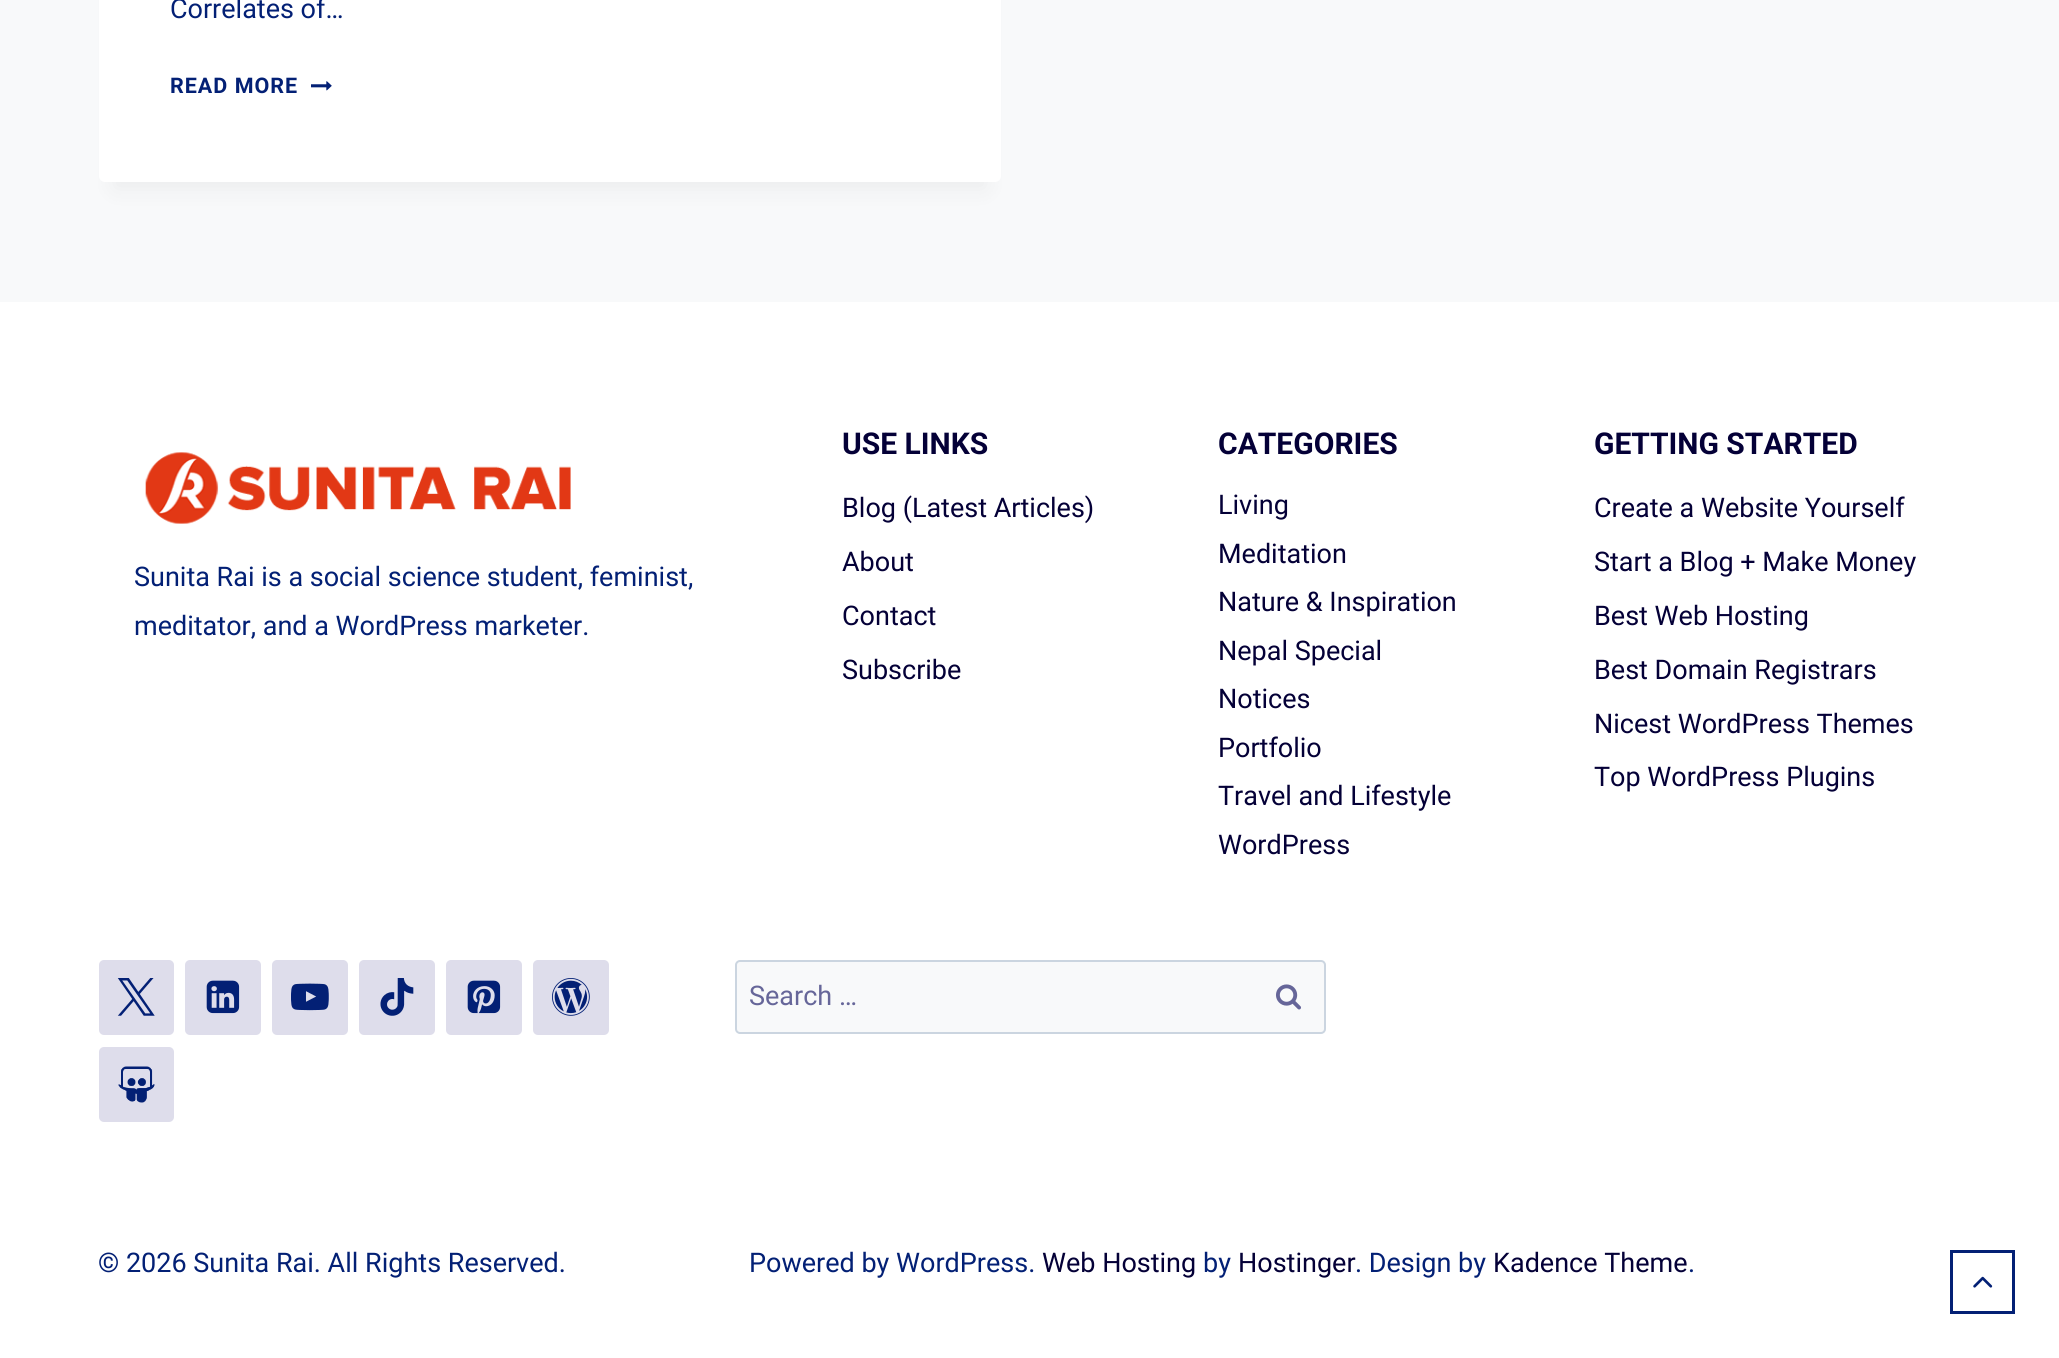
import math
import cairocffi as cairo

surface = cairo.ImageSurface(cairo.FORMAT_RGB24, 2059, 1358)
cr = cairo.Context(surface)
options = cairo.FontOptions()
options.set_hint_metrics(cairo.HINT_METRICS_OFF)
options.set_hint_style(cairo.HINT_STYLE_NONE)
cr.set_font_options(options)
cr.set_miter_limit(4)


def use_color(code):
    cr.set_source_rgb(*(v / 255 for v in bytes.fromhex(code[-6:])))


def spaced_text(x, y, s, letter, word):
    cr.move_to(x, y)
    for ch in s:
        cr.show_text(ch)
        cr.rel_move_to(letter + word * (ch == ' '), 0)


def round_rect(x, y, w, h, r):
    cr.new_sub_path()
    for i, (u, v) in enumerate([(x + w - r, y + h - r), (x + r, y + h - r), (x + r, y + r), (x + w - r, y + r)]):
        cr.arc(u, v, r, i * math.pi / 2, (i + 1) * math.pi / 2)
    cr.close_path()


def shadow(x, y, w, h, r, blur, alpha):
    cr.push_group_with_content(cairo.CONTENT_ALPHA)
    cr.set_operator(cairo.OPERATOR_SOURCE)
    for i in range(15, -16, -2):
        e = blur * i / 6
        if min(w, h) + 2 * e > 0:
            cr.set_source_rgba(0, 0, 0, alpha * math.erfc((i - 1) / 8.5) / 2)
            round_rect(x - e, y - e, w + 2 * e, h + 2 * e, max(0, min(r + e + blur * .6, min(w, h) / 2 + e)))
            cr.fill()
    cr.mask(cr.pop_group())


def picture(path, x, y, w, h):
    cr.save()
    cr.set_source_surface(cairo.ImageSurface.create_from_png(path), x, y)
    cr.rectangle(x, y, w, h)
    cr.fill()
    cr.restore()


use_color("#f8f9fa")
cr.paint()
use_color("#000000")
shadow(114, -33, 872, 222, 0, 11, 0.05)
use_color("#ffffff")
round_rect(99, -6, 902, 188, 6)
cr.fill()
cr.select_font_face("Roboto")
cr.set_font_size(27)
use_color("#032075")
cr.move_to(170, 18)
cr.show_text("Correlates of…")
cr.select_font_face("Roboto", cairo.FONT_SLANT_NORMAL, cairo.FONT_WEIGHT_BOLD)
cr.set_font_size(21.5)
spaced_text(170, 93, "READ MORE", 1, 0)
picture("img1.png", 311, 81, 21, 10)
use_color("#ffffff")
cr.rectangle(0, 302, 2059, 1056)
cr.fill()
picture("img2.png", 145, 452, 426, 72)
cr.select_font_face("Roboto")
cr.set_font_size(27)
use_color("#032075")
cr.move_to(134, 586)
cr.show_text("Sunita Rai is a social science student, feminist,")
cr.move_to(134, 635)
cr.show_text("meditator, and a WordPress marketer.")
cr.select_font_face("Roboto", cairo.FONT_SLANT_NORMAL, cairo.FONT_WEIGHT_BOLD)
cr.set_font_size(30)
use_color("#040037")
cr.move_to(842, 454)
cr.show_text("USE LINKS")
cr.select_font_face("Roboto")
cr.set_font_size(27)
cr.move_to(842, 517)
cr.show_text("Blog (Latest Articles)")
cr.move_to(842, 571)
cr.show_text("About")
cr.move_to(842, 625)
cr.show_text("Contact")
cr.move_to(842, 679)
cr.show_text("Subscribe")
cr.select_font_face("Roboto", cairo.FONT_SLANT_NORMAL, cairo.FONT_WEIGHT_BOLD)
cr.set_font_size(30)
cr.move_to(1218, 454)
cr.show_text("CATEGORIES")
cr.select_font_face("Roboto")
cr.set_font_size(27)
cr.move_to(1218, 514)
cr.show_text("Living")
cr.move_to(1218, 563)
cr.show_text("Meditation")
cr.move_to(1218, 611)
cr.show_text("Nature & Inspiration")
cr.move_to(1218, 660)
cr.show_text("Nepal Special")
cr.move_to(1218, 708)
cr.show_text("Notices")
cr.move_to(1218, 757)
cr.show_text("Portfolio")
cr.move_to(1218, 805)
cr.show_text("Travel and Lifestyle")
cr.move_to(1218, 854)
cr.show_text("WordPress")
cr.select_font_face("Roboto", cairo.FONT_SLANT_NORMAL, cairo.FONT_WEIGHT_BOLD)
cr.set_font_size(30)
cr.move_to(1594, 454)
cr.show_text("GETTING STARTED")
cr.select_font_face("Roboto")
cr.set_font_size(27)
cr.move_to(1594, 517)
cr.show_text("Create a Website Yourself")
cr.move_to(1594, 571)
cr.show_text("Start a Blog + Make Money")
cr.move_to(1594, 625)
cr.show_text("Best Web Hosting")
cr.move_to(1594, 679)
cr.show_text("Best Domain Registrars")
cr.move_to(1594, 733)
cr.show_text("Nicest WordPress Themes")
cr.move_to(1594, 786)
cr.show_text("Top WordPress Plugins")
use_color("#deddeb")
round_rect(99, 960, 75, 75, 5)
cr.fill()
picture("img3.png", 117, 978, 38, 38)
round_rect(185, 960, 76, 75, 5)
cr.fill()
picture("img4.png", 206, 980, 34, 34)
round_rect(272, 960, 76, 75, 5)
cr.fill()
picture("img5.png", 291, 983, 38, 28)
round_rect(359, 960, 76, 75, 5)
cr.fill()
picture("img6.png", 380, 978, 34, 38)
round_rect(446, 960, 76, 75, 5)
cr.fill()
picture("img7.png", 467, 980, 34, 34)
round_rect(533, 960, 76, 75, 5)
cr.fill()
picture("img8.png", 552, 978, 38, 38)
round_rect(99, 1047, 75, 75, 5)
cr.fill()
picture("img9.png", 118, 1066, 37, 37)
use_color("#f8f9fa")
round_rect(736, 961, 589, 72, 4)
cr.fill_preserve()
use_color("#cbd5e0")
cr.stroke()
use_color("#666699")
cr.move_to(749, 1005)
cr.show_text("Search …")
picture("img10.png", 1276, 984, 25, 26)
use_color("#032075")
cr.move_to(98, 1272)
cr.show_text("© 2026 Sunita Rai. All Rights Reserved.")
cr.move_to(749, 1272)
cr.show_text("Powered by WordPress.")
use_color("#040037")
cr.move_to(1042, 1272)
cr.show_text("Web Hosting")
use_color("#032075")
cr.move_to(1203, 1272)
cr.show_text("by")
use_color("#040037")
cr.move_to(1238, 1272)
cr.show_text("Hostinger")
use_color("#032075")
cr.move_to(1355, 1272)
cr.show_text(". Design by")
use_color("#040037")
cr.move_to(1493, 1272)
cr.show_text("Kadence Theme")
use_color("#032075")
cr.move_to(1688, 1272)
cr.show_text(".")
cr.rectangle(1951.5, 1251.5, 62, 61)
cr.set_line_width(3)
cr.stroke()
picture("img11.png", 1973, 1276, 20, 12)
surface.write_to_png("result.png")
